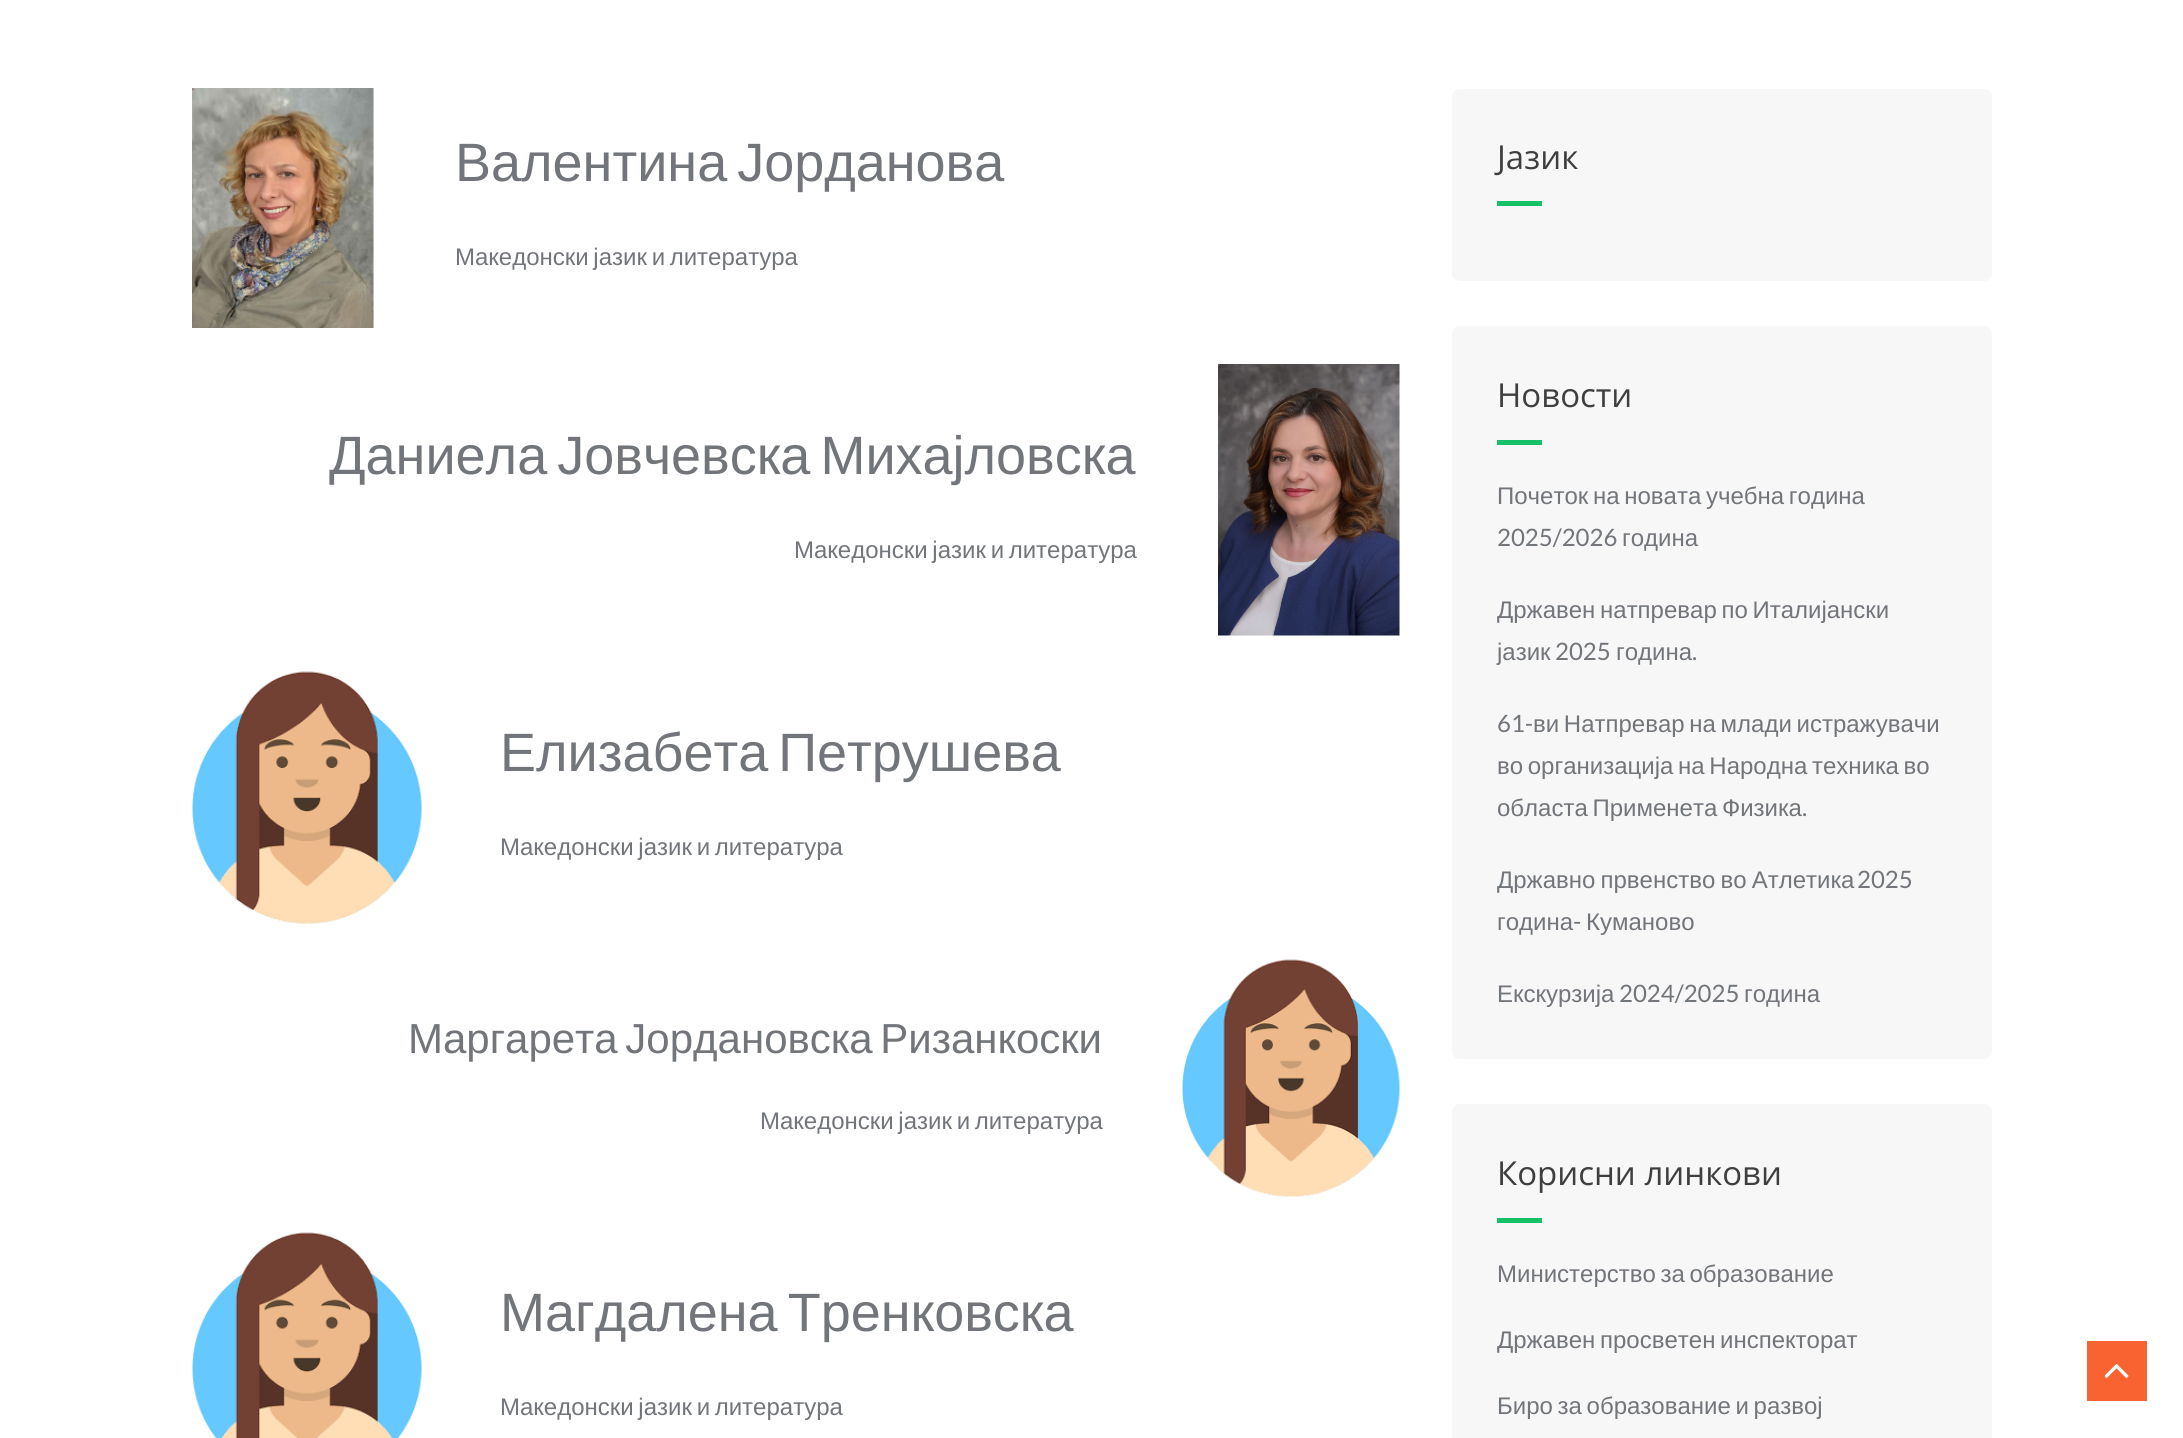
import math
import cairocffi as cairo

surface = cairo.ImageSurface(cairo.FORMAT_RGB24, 2183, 1438)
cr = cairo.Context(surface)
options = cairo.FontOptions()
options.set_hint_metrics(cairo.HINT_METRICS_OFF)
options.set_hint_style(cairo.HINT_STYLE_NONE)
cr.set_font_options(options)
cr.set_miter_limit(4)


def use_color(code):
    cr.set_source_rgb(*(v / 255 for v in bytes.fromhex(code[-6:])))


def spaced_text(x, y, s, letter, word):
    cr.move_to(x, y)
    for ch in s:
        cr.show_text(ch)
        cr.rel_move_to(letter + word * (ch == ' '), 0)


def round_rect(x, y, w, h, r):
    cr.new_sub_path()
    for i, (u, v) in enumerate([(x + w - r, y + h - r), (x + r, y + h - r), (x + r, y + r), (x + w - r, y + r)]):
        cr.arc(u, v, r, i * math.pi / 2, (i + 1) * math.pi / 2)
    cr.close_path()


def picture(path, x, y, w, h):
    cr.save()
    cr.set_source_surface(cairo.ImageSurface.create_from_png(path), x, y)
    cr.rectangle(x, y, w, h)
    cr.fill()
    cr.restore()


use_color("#ffffff")
cr.paint()
picture("img1.png", 192, 88, 182, 240)
cr.select_font_face("Liberation Sans")
cr.set_font_size(54)
use_color("#72757a")
spaced_text(455, 181, "Валентина Јорданова", 0, -5)
cr.set_font_size(24)
spaced_text(455, 265, "Македонски јазик и литература", 0, -2)
cr.set_font_size(54)
spaced_text(329, 474, "Даниела Јовчевска Михајловска", 0, -5)
cr.set_font_size(24)
spaced_text(794, 558, "Македонски јазик и литература", 0, -2)
picture("img2.png", 1218, 364, 182, 272)
picture("img3.png", 192, 671, 230, 253)
cr.set_font_size(54)
spaced_text(500, 771, "Елизабета Петрушева", 0, -5)
cr.set_font_size(24)
spaced_text(500, 855, "Македонски јазик и литература", 0, -2)
cr.set_font_size(42)
spaced_text(408, 1053, "Маргарета Јордановска Ризанкоски", 0, -4)
cr.set_font_size(24)
spaced_text(760, 1129, "Македонски јазик и литература", 0, -2)
picture("img4.png", 1182, 959, 218, 238)
picture("img5.png", 192, 1232, 230, 206)
cr.set_font_size(54)
spaced_text(500, 1331, "Магдалена Тренковска", 0, -5)
cr.set_font_size(24)
spaced_text(500, 1415, "Македонски јазик и литература", 0, -2)
use_color("#f7f7f7")
round_rect(1452, 89, 540, 192, 8)
cr.fill()
cr.select_font_face("Open Sans")
cr.set_font_size(33)
use_color("#3f3f3f")
cr.move_to(1497, 169)
cr.show_text("Јазик")
use_color("#14c167")
cr.rectangle(1497, 201, 45, 5)
cr.fill()
use_color("#f7f7f7")
round_rect(1452, 326, 540, 733, 8)
cr.fill()
use_color("#3f3f3f")
cr.move_to(1497, 407)
cr.show_text("Новости")
use_color("#14c167")
cr.rectangle(1497, 440, 45, 5)
cr.fill()
cr.select_font_face("Liberation Sans")
cr.set_font_size(24)
use_color("#72757a")
spaced_text(1497, 504, "Почеток на новата учебна година", 0, -2)
cr.select_font_face("Lato")
cr.move_to(1497, 546)
cr.show_text("2025/2026")
cr.select_font_face("Liberation Sans")
cr.move_to(1622, 546)
cr.show_text("година")
spaced_text(1497, 618, "Државен натпревар по Италијански", 0, -2)
cr.move_to(1497, 660)
cr.show_text("јазик")
cr.select_font_face("Lato")
cr.move_to(1555, 660)
cr.show_text("2025")
cr.select_font_face("Liberation Sans")
cr.move_to(1616, 660)
cr.show_text("година")
cr.select_font_face("Lato")
cr.move_to(1692, 660)
cr.show_text(".")
cr.move_to(1497, 732)
cr.show_text("61-")
cr.select_font_face("Liberation Sans")
spaced_text(1533, 732, "ви Натпревар на млади истражувачи", 0, -2)
spaced_text(1497, 774, "во организација на Народна техника во", 0, -2)
spaced_text(1497, 816, "областа Применета Физика", 0, -2)
cr.select_font_face("Lato")
cr.move_to(1802, 816)
cr.show_text(".")
cr.select_font_face("Liberation Sans")
spaced_text(1497, 888, "Државно првенство во Атлетика", 0, -1.5)
cr.select_font_face("Lato")
cr.move_to(1857, 888)
cr.show_text("2025")
cr.select_font_face("Liberation Sans")
cr.move_to(1497, 930)
cr.show_text("година")
cr.select_font_face("Lato")
cr.move_to(1573, 930)
cr.show_text("-")
cr.select_font_face("Liberation Sans")
cr.move_to(1586, 930)
cr.show_text("Куманово")
cr.move_to(1497, 1002)
cr.show_text("Екскурзија")
cr.select_font_face("Lato")
cr.move_to(1619, 1002)
cr.show_text("2024/2025")
cr.select_font_face("Liberation Sans")
cr.move_to(1744, 1002)
cr.show_text("година")
use_color("#f7f7f7")
round_rect(1452, 1104, 540, 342, 8)
cr.fill()
cr.select_font_face("Open Sans")
cr.set_font_size(33)
use_color("#3f3f3f")
cr.move_to(1497, 1185)
cr.show_text("Корисни линкови")
use_color("#14c167")
cr.rectangle(1497, 1218, 45, 5)
cr.fill()
cr.select_font_face("Liberation Sans")
cr.set_font_size(24)
use_color("#72757a")
spaced_text(1497, 1282, "Министерство за образование", 0, -2)
spaced_text(1497, 1348, "Државен просветен инспекторат", 0, -2)
spaced_text(1497, 1414, "Биро за образование и развој", 0, -2)
use_color("#f96331")
cr.rectangle(2087, 1341, 60, 60)
cr.fill()
picture("img6.png", 2105, 1364, 24, 14)
surface.write_to_png("result.png")
